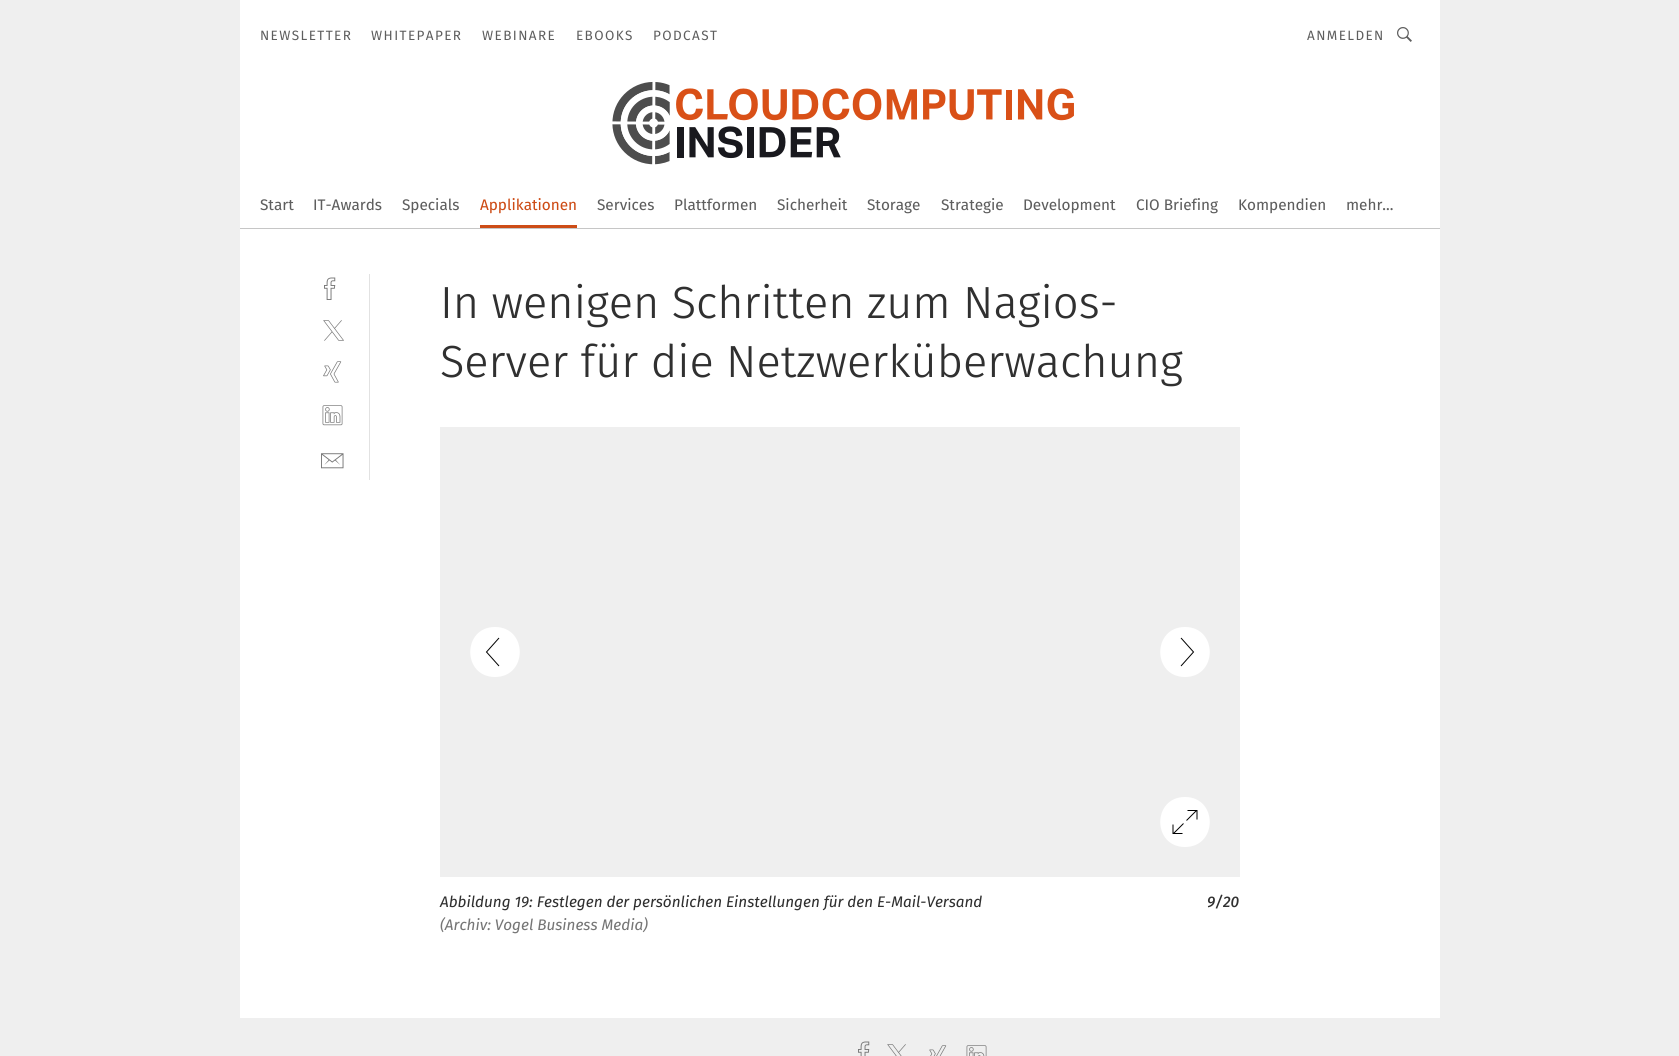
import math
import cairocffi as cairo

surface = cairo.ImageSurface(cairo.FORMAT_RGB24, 1679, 1056)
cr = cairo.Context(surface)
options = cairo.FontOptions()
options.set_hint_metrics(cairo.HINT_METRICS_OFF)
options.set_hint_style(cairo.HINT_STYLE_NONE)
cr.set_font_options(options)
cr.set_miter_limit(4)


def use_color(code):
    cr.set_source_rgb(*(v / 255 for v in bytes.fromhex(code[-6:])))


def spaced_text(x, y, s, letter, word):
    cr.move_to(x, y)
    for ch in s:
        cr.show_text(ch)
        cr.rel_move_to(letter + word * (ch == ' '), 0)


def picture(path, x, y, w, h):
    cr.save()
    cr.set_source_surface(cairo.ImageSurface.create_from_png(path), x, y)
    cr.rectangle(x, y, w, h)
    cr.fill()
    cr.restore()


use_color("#efefef")
cr.paint()
use_color("#ffffff")
cr.rectangle(240, 0, 1200, 1018)
cr.fill()
use_color("#c6c6c6")
cr.rectangle(240, 228, 1200, 1)
cr.fill()
cr.select_font_face("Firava")
cr.set_font_size(13.5)
use_color("#5e5e5e")
spaced_text(260, 40, "NEWSLETTER", 1.4, 0)
spaced_text(371, 40, "WHITEPAPER", 1.4, 0)
spaced_text(482, 40, "WEBINARE", 1.4, 0)
spaced_text(576, 40, "EBOOKS", 1.4, 0)
spaced_text(653, 40, "PODCAST", 1.4, 0)
spaced_text(1307, 40, "ANMELDEN", 1.4, 0)
picture("img1.png", 1397, 27, 15, 15)
picture("img2.png", 612, 81, 462, 84)
cr.select_font_face("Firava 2")
cr.set_font_size(15.3)
cr.move_to(260, 210)
cr.show_text("Start")
cr.move_to(313, 210)
cr.show_text("IT-Awards")
cr.move_to(402, 210)
cr.show_text("Specials")
use_color("#cd4c16")
cr.rectangle(480, 225, 97, 3)
cr.fill()
cr.move_to(480, 210)
cr.show_text("Applikationen")
use_color("#5e5e5e")
cr.move_to(597, 210)
cr.show_text("Services")
cr.move_to(674, 210)
cr.show_text("Plattformen")
cr.move_to(777, 210)
cr.show_text("Sicherheit")
cr.move_to(867, 210)
cr.show_text("Storage")
cr.move_to(941, 210)
cr.show_text("Strategie")
cr.move_to(1023, 210)
cr.show_text("Development")
cr.move_to(1136, 210)
cr.show_text("CIO Briefing")
cr.move_to(1238, 210)
cr.show_text("Kompendien")
cr.move_to(1346, 210)
cr.show_text("mehr...")
use_color("#e2e2e2")
cr.rectangle(369, 274, 1, 206)
cr.fill()
picture("img3.png", 324, 277, 12, 23)
picture("img4.png", 323, 320, 21, 21)
picture("img5.png", 323, 361, 19, 22)
picture("img6.png", 322, 405, 21, 21)
picture("img7.png", 321, 453, 23, 16)
cr.select_font_face("Firava Light")
cr.set_font_size(45)
use_color("#303030")
cr.move_to(440, 318)
cr.show_text("In wenigen Schritten zum Nagios-")
cr.move_to(440, 377)
cr.show_text("Server für die Netzwerküberwachung")
use_color("#efefef")
cr.rectangle(440, 427, 800, 450)
cr.fill()
use_color("#ffffff")
cr.new_path()
cr.move_to(495, 677)
cr.curve_to(528, 677, 528, 627, 495, 627)
cr.curve_to(462, 627, 462, 677, 495, 677)
cr.fill()
cr.new_path()
cr.move_to(499, 638)
cr.line_to(486.5, 652)
cr.line_to(499, 666)
use_color("#000000")
cr.set_line_width(1)
cr.stroke()
use_color("#ffffff")
cr.new_path()
cr.move_to(1185, 627)
cr.curve_to(1152, 627, 1152, 677, 1185, 677)
cr.curve_to(1218, 677, 1218, 627, 1185, 627)
cr.fill()
cr.new_path()
cr.move_to(1181, 666)
cr.line_to(1193.5, 652)
cr.line_to(1181, 638)
use_color("#000000")
cr.stroke()
use_color("#ffffff")
cr.new_path()
cr.move_to(1185, 847)
cr.curve_to(1218, 847, 1218, 797, 1185, 797)
cr.curve_to(1152, 797, 1152, 847, 1185, 847)
cr.fill()
cr.new_path()
cr.move_to(1197, 819.5)
cr.line_to(1197, 810.5)
cr.line_to(1187.5, 810.5)
cr.move_to(1173, 824.5)
cr.line_to(1173, 833.5)
cr.line_to(1182.5, 833.5)
cr.move_to(1196.5, 810.5)
cr.line_to(1186.5, 820.5)
cr.move_to(1183.5, 823.5)
cr.line_to(1173.5, 833.5)
use_color("#000000")
cr.stroke()
cr.select_font_face("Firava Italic", cairo.FONT_SLANT_ITALIC)
cr.set_font_size(15.3)
use_color("#303030")
cr.move_to(440, 907)
cr.show_text("Abbildung 19: Festlegen der persönlichen Einstellungen für den E-Mail-Versand")
use_color("#767676")
cr.move_to(440, 930)
cr.show_text("(Archiv: Vogel Business Media)")
cr.select_font_face("Firava Italic Medium", cairo.FONT_SLANT_ITALIC)
use_color("#303030")
cr.move_to(1207, 907)
cr.show_text("9/20")
picture("img8.png", 858, 1041, 12, 15)
picture("img9.png", 887, 1044, 19, 12)
picture("img10.png", 929, 1045, 18, 11)
picture("img11.png", 966, 1045, 21, 11)
surface.write_to_png("result.png")
